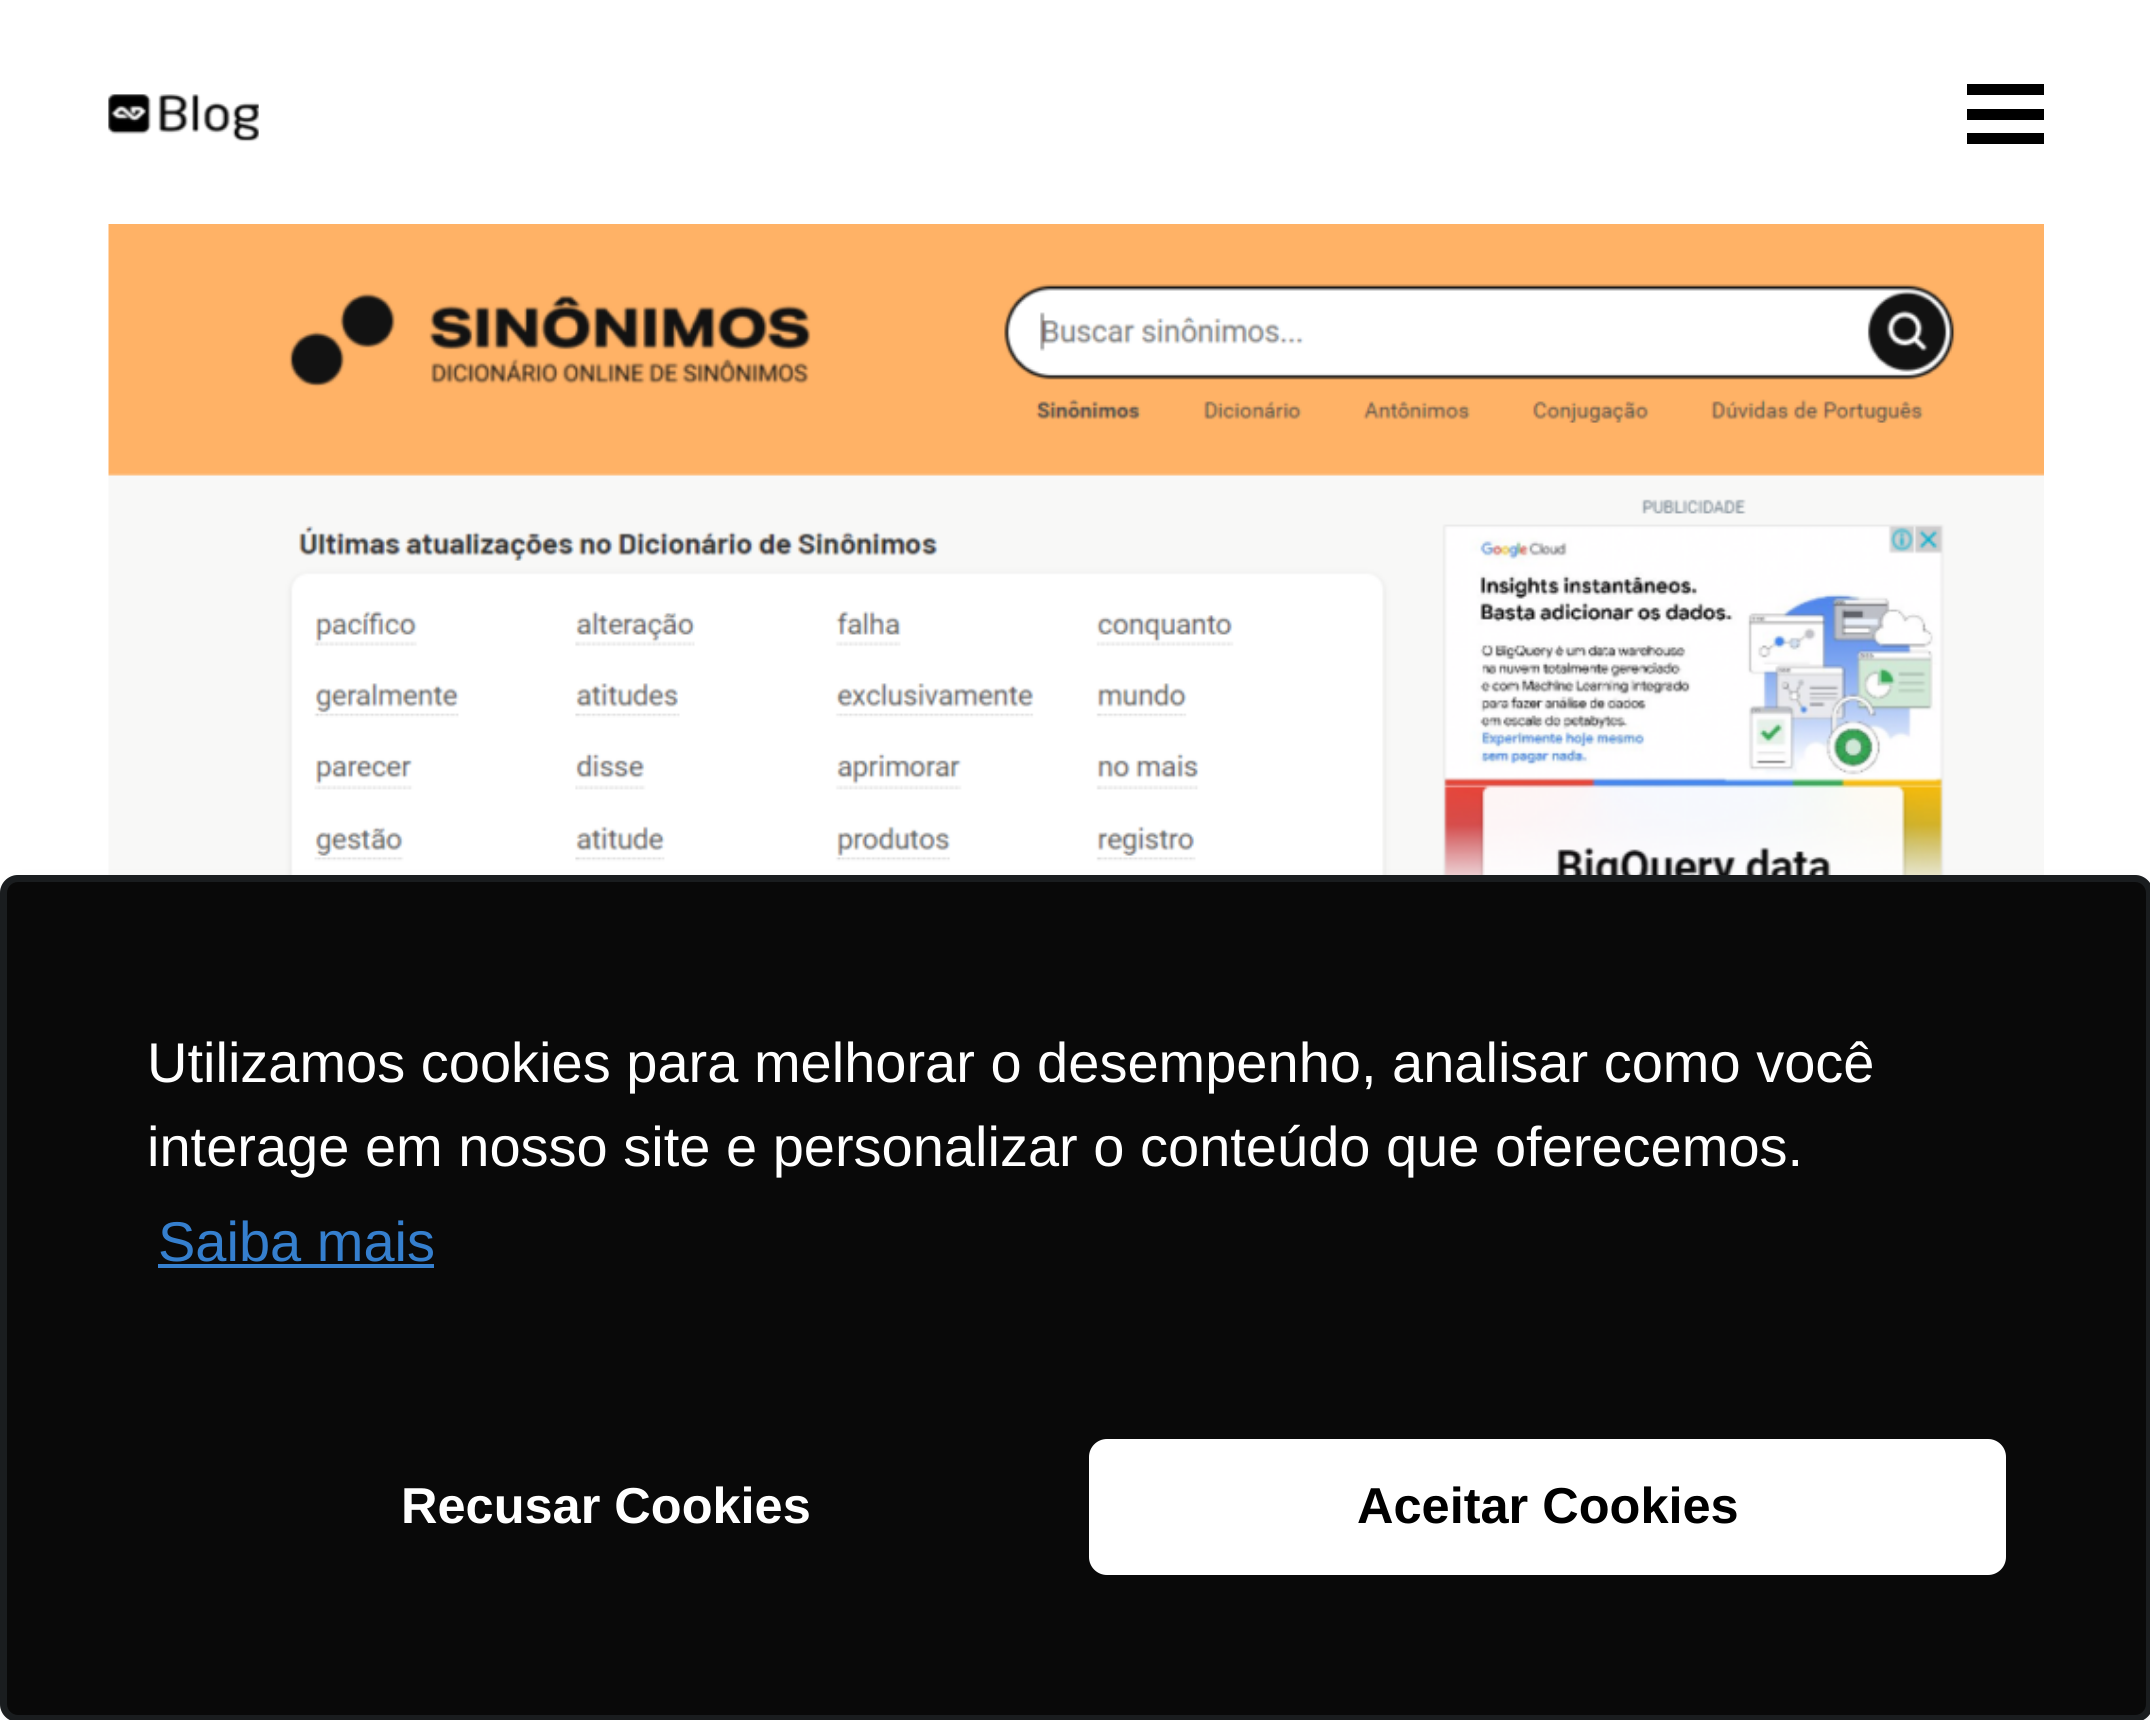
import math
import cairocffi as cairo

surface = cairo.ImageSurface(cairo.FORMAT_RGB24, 2150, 1720)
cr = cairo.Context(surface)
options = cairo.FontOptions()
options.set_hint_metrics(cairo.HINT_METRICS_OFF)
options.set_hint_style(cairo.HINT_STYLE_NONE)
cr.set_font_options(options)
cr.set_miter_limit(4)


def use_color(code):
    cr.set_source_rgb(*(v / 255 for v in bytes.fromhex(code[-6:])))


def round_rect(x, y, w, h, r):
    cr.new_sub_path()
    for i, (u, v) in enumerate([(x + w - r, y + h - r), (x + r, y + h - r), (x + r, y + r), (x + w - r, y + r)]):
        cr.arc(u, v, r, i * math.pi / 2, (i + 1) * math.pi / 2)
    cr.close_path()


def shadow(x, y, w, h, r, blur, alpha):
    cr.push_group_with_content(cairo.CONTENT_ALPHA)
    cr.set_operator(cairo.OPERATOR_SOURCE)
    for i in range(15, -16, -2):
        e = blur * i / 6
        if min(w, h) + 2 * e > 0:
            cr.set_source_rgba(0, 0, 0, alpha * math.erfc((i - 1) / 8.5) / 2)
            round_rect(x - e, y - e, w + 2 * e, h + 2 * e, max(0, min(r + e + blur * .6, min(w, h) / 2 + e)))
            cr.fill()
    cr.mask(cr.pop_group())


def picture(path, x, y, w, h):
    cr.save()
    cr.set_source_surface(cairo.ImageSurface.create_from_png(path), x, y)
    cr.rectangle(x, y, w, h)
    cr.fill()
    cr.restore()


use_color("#ffffff")
cr.paint()
picture("img1.png", 108, 94, 151, 48)
use_color("#000000")
cr.rectangle(1967, 109, 77, 11)
cr.fill()
cr.rectangle(1967, 84, 77, 11)
cr.fill()
cr.rectangle(1967, 133, 77, 11)
cr.fill()
picture("img2.png", 108, 224, 1936, 651)
use_color("#636e7c")
shadow(4, 882, 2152, 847, 18, 7, 0.1)
use_color("#090909")
round_rect(0, 875, 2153, 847, 18)
cr.fill()
round_rect(3.5, 878.5, 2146, 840, 14.5)
cr.set_source_rgba(0.388, 0.431, 0.486, 0.2)
cr.set_line_width(7)
cr.stroke()
cr.select_font_face("Liberation Sans")
cr.set_font_size(56)
use_color("#ffffff")
cr.move_to(147, 1082)
cr.show_text("Utilizamos cookies para melhorar o desempenho, analisar como você")
cr.move_to(147, 1166)
cr.show_text("interage em nosso site e personalizar o conteúdo que oferecemos.")
use_color("#357fce")
cr.move_to(158, 1261)
cr.show_text("Saiba mais")
cr.rectangle(158, 1264, 276, 4)
cr.fill()
cr.select_font_face("Liberation Sans", cairo.FONT_SLANT_NORMAL, cairo.FONT_WEIGHT_BOLD)
cr.set_font_size(50.5)
use_color("#ffffff")
cr.move_to(401, 1523)
cr.show_text("Recusar Cookies")
round_rect(1089, 1439, 917, 136, 18)
cr.fill()
use_color("#000000")
cr.move_to(1357, 1523)
cr.show_text("Aceitar Cookies")
surface.write_to_png("result.png")
